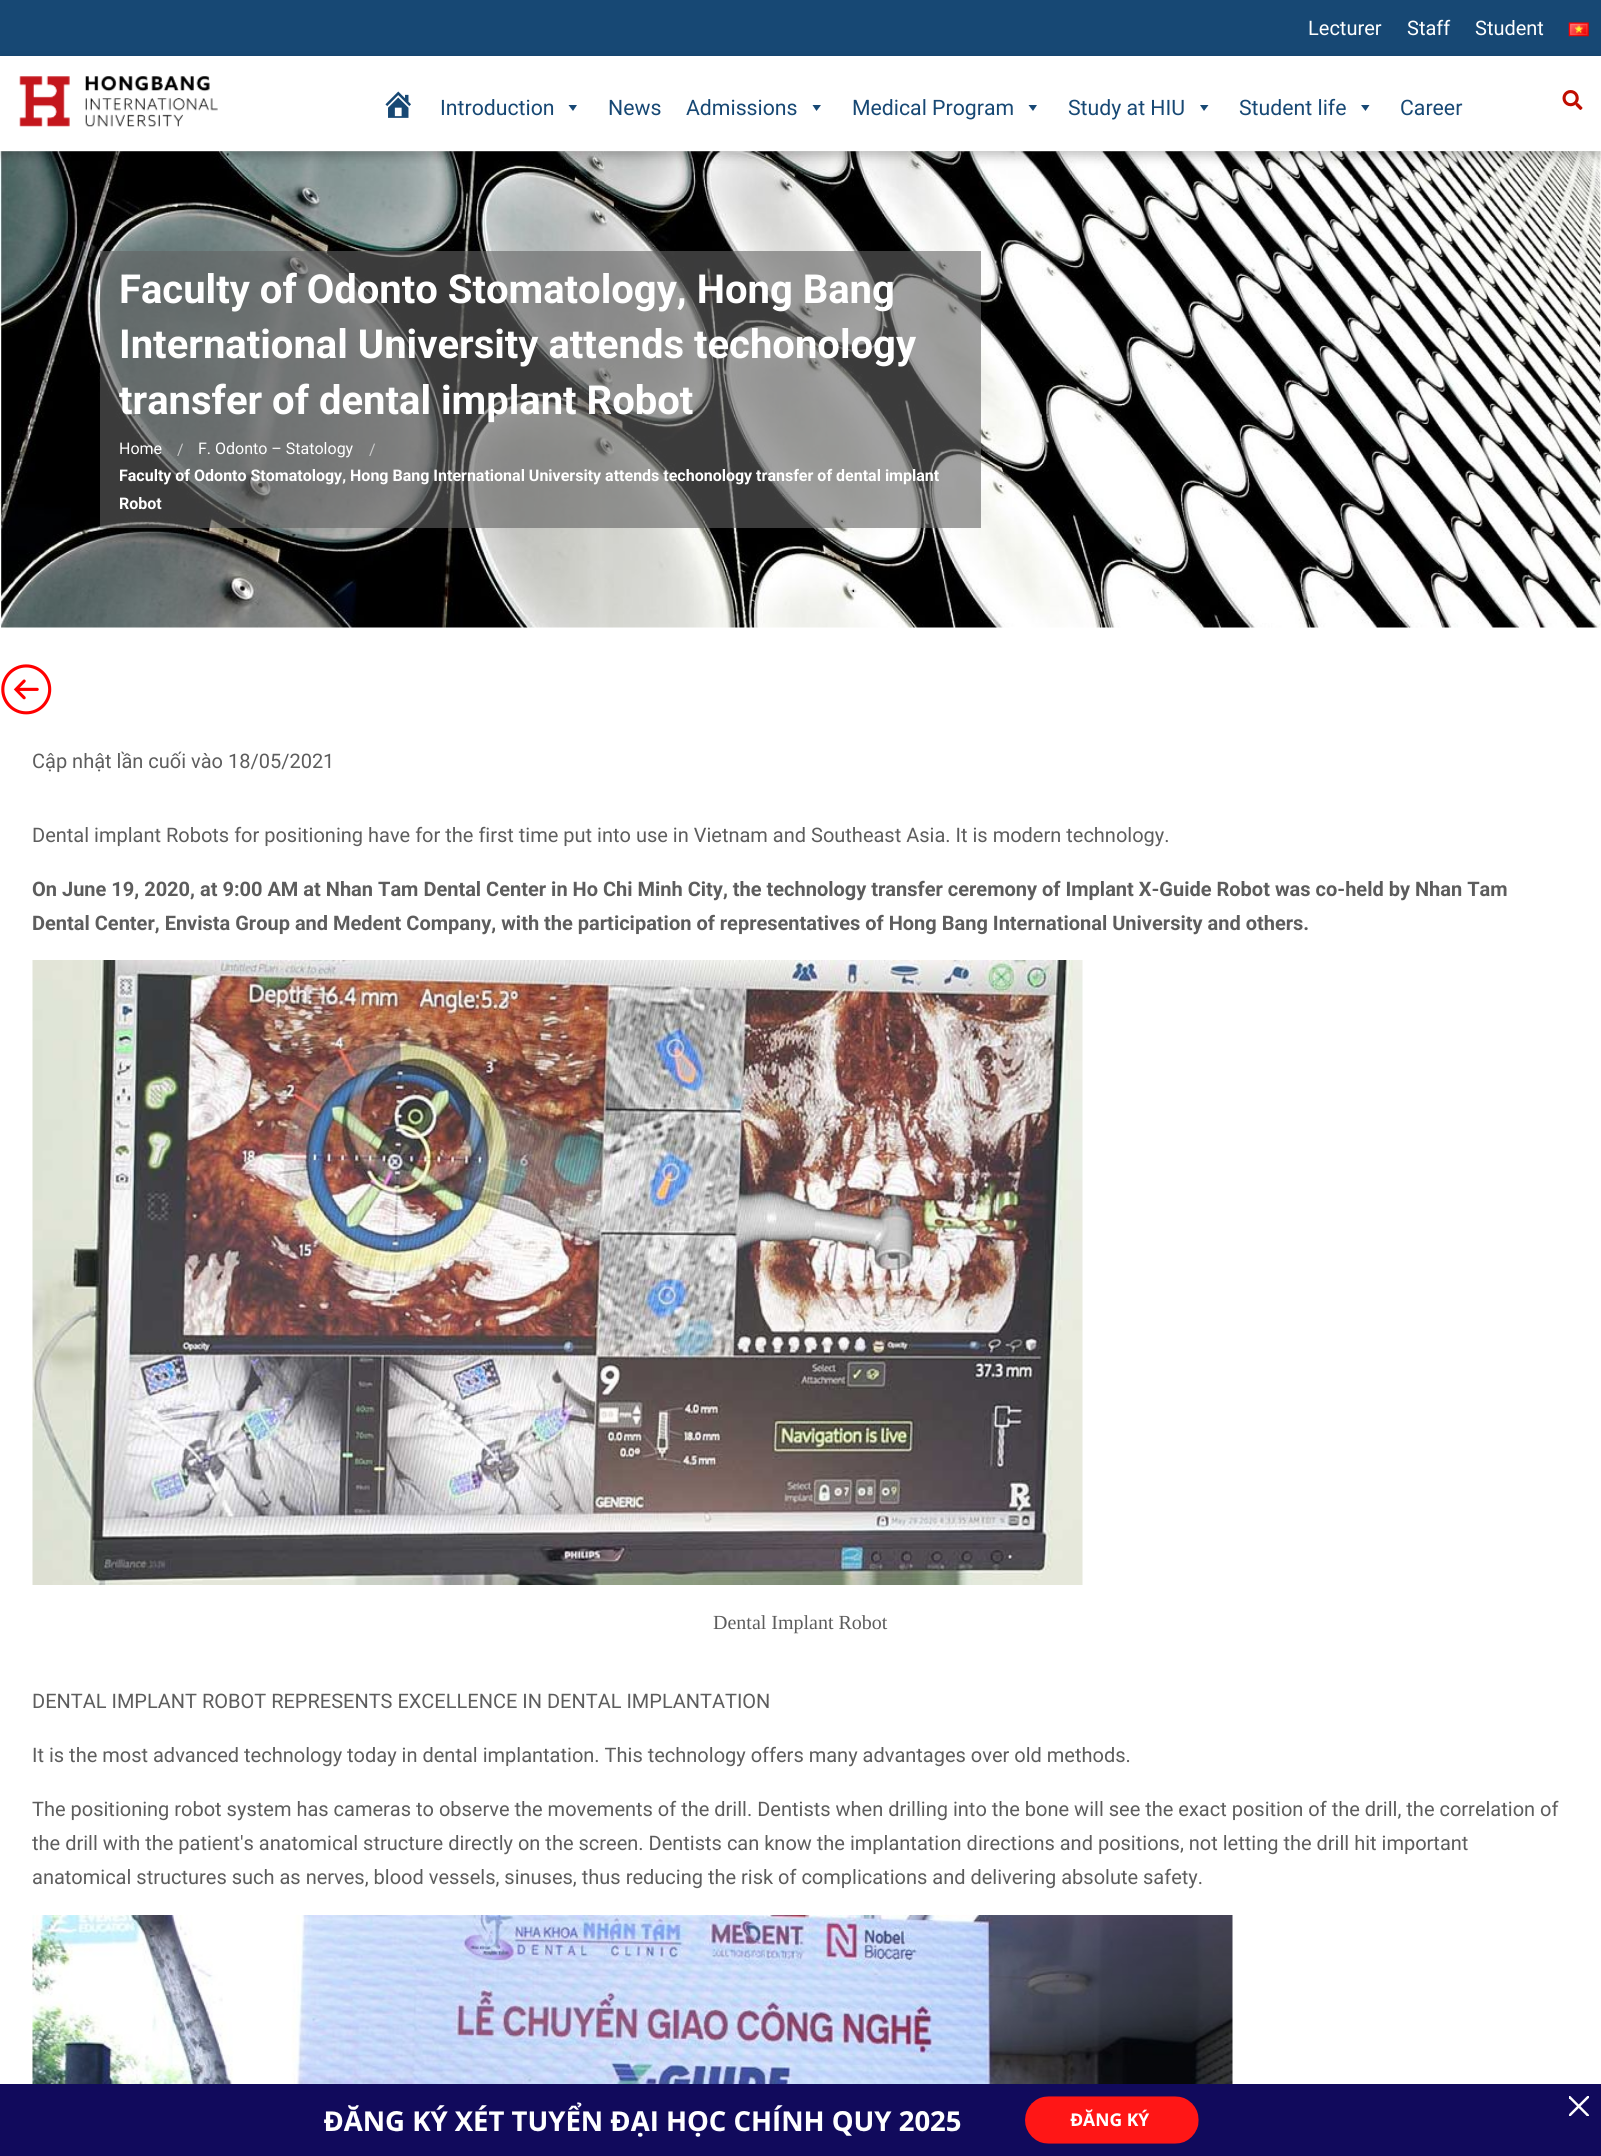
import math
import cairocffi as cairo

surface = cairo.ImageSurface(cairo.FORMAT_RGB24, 1601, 2156)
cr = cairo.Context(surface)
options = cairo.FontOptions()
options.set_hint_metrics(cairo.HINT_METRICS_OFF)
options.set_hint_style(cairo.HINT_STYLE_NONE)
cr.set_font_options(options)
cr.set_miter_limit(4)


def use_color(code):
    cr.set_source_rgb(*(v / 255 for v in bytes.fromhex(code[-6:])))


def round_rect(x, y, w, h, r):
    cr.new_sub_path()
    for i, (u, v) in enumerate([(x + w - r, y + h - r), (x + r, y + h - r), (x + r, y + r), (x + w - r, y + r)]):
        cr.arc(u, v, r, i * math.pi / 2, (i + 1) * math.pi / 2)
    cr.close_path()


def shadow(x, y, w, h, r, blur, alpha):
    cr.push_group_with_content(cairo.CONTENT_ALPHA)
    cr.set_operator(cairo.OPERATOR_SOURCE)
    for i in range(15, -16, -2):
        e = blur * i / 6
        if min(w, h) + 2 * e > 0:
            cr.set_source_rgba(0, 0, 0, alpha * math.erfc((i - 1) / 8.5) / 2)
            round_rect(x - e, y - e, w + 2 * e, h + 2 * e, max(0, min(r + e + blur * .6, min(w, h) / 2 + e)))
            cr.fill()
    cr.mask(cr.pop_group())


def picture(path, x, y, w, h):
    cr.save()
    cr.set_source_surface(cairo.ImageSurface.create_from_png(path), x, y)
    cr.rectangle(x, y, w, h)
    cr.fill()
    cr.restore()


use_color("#ffffff")
cr.paint()
use_color("#174874")
cr.rectangle(0, 0, 1601, 56)
cr.fill()
cr.select_font_face("Roboto")
cr.set_font_size(20)
use_color("#ffffff")
cr.move_to(1308, 35)
cr.show_text("Lecturer")
cr.move_to(1407, 35)
cr.show_text("Staff")
cr.move_to(1475, 35)
cr.show_text("Student")
picture("img1.png", 1568, 22, 21, 15)
picture("img5.png", 0, 151, 1601, 477)
use_color("#000000")
shadow(0, 61, 1601, 95, 0, 5.5, 0.24)
use_color("#ffffff")
cr.rectangle(0, 56, 1601, 95)
cr.fill()
picture("img2.png", 19, 76, 199, 51)
picture("img3.png", 385, 91, 26, 27)
cr.set_font_size(21.25)
use_color("#174874")
cr.move_to(440, 115)
cr.show_text("Introduction")
cr.new_path()
cr.move_to(577, 105)
cr.line_to(573, 111)
cr.line_to(568.5, 105)
cr.close_path()
cr.fill()
cr.move_to(608, 115)
cr.show_text("News")
cr.move_to(686, 115)
cr.show_text("Admissions")
cr.new_path()
cr.move_to(821, 105)
cr.line_to(816.5, 111)
cr.line_to(812.5, 105)
cr.close_path()
cr.fill()
cr.move_to(852, 115)
cr.show_text("Medical Program")
cr.new_path()
cr.move_to(1037, 105)
cr.line_to(1033, 111)
cr.line_to(1028.5, 105)
cr.close_path()
cr.fill()
cr.move_to(1068, 115)
cr.show_text("Study at HIU")
cr.new_path()
cr.move_to(1208.5, 105)
cr.line_to(1204, 111)
cr.line_to(1200, 105)
cr.close_path()
cr.fill()
cr.move_to(1239, 115)
cr.show_text("Student life")
cr.new_path()
cr.move_to(1369.5, 105)
cr.line_to(1365.5, 111)
cr.line_to(1361, 105)
cr.close_path()
cr.fill()
cr.move_to(1400, 115)
cr.show_text("Career")
picture("img4.png", 1562, 90, 21, 20)
cr.set_source_rgba(0.388, 0.388, 0.388, 0.6)
cr.rectangle(100, 251, 881, 277)
cr.fill()
cr.select_font_face("Roboto", cairo.FONT_SLANT_NORMAL, cairo.FONT_WEIGHT_BOLD)
cr.set_font_size(40)
use_color("#ffffff")
cr.move_to(119, 303)
cr.show_text("Faculty of Odonto Stomatology, Hong Bang")
cr.move_to(119, 358)
cr.show_text("International University attends techonology")
cr.move_to(119, 414)
cr.show_text("transfer of dental implant Robot")
cr.select_font_face("Roboto")
cr.set_font_size(16)
cr.move_to(119, 454)
cr.show_text("Home")
use_color("#cacaca")
cr.move_to(177, 455)
cr.show_text("/")
use_color("#ffffff")
cr.move_to(198, 454)
cr.show_text("F. Odonto – Statology")
use_color("#cacaca")
cr.move_to(369, 455)
cr.show_text("/")
cr.select_font_face("Roboto", cairo.FONT_SLANT_NORMAL, cairo.FONT_WEIGHT_BOLD)
use_color("#ffffff")
cr.move_to(119, 481)
cr.show_text("Faculty of Odonto Stomatology, Hong Bang International University attends techonology transfer of dental implant")
cr.move_to(119, 509)
cr.show_text("Robot")
picture("img6.png", 1, 664, 51, 51)
cr.select_font_face("Roboto")
cr.set_font_size(20)
use_color("#5d5d5d")
cr.move_to(32, 768)
cr.show_text("Cập nhật lần cuối vào 18/05/2021")
cr.move_to(32, 842)
cr.show_text("Dental implant Robots for positioning have for the first time put into use in Vietnam and Southeast Asia. It is modern technology.")
cr.select_font_face("Roboto", cairo.FONT_SLANT_NORMAL, cairo.FONT_WEIGHT_BOLD)
cr.move_to(32, 896)
cr.show_text("On June 19, 2020, at 9:00 AM at Nhan Tam Dental Center in Ho Chi Minh City, the technology transfer ceremony of Implant X-Guide Robot was co-held by Nhan Tam")
cr.move_to(32, 930)
cr.show_text("Dental Center, Envista Group and Medent Company, with the participation of representatives of Hong Bang International University and others.")
picture("img7.png", 32, 960, 1051, 625)
cr.select_font_face("Liberation Serif")
cr.move_to(713, 1629)
cr.show_text("Dental Implant Robot")
cr.select_font_face("Roboto")
cr.move_to(32, 1708)
cr.show_text("DENTAL IMPLANT ROBOT REPRESENTS EXCELLENCE IN DENTAL IMPLANTATION")
cr.move_to(32, 1762)
cr.show_text("It is the most advanced technology today in dental implantation. This technology offers many advantages over old methods.")
cr.move_to(32, 1816)
cr.show_text("The positioning robot system has cameras to observe the movements of the drill. Dentists when drilling into the bone will see the exact position of the drill, the correlation of")
cr.move_to(32, 1850)
cr.show_text("the drill with the patient's anatomical structure directly on the screen. Dentists can know the implantation directions and positions, not letting the drill hit important")
cr.move_to(32, 1884)
cr.show_text("anatomical structures such as nerves, blood vessels, sinuses, thus reducing the risk of complications and delivering absolute safety.")
picture("img8.png", 32, 1915, 1201, 169)
picture("img9.png", 0, 2084, 1601, 72)
surface.write_to_png("result.png")
